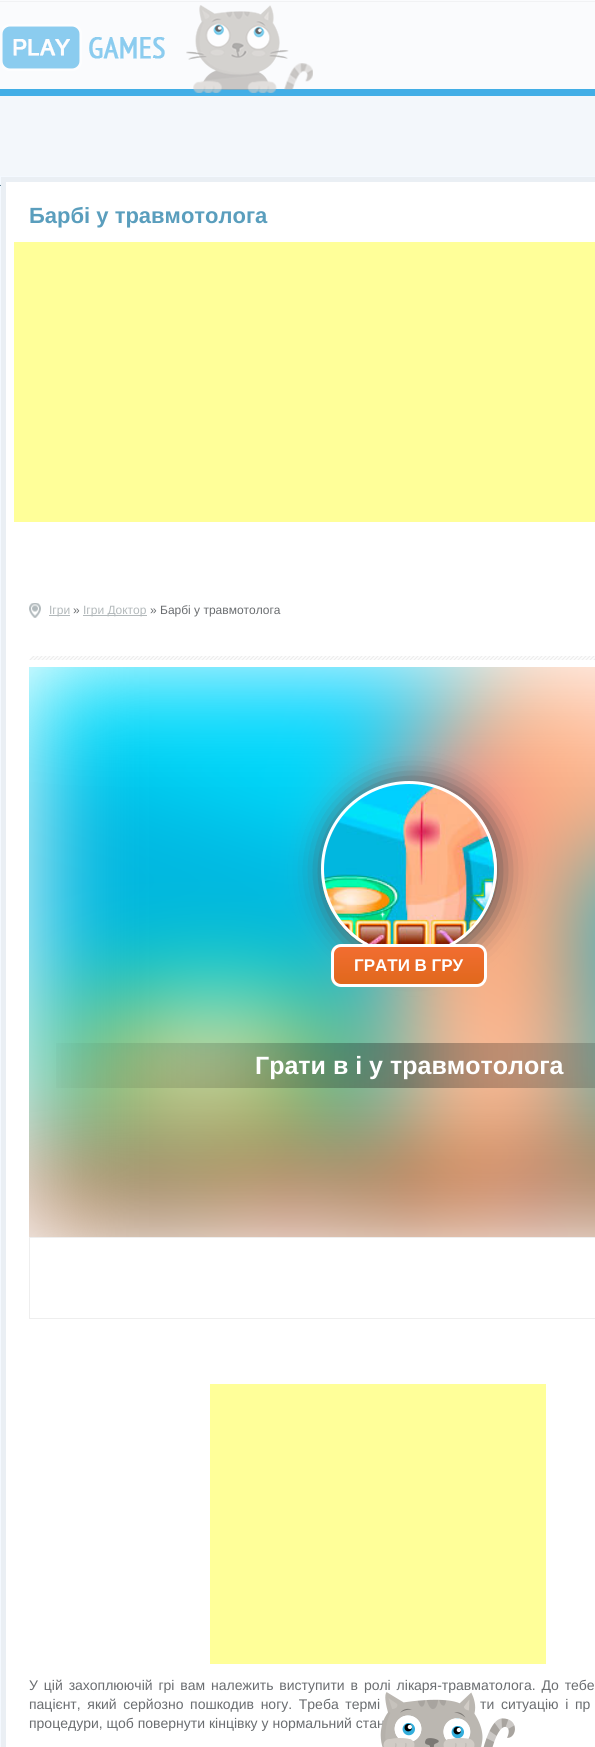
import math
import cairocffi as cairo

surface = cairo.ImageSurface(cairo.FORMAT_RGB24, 595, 1747)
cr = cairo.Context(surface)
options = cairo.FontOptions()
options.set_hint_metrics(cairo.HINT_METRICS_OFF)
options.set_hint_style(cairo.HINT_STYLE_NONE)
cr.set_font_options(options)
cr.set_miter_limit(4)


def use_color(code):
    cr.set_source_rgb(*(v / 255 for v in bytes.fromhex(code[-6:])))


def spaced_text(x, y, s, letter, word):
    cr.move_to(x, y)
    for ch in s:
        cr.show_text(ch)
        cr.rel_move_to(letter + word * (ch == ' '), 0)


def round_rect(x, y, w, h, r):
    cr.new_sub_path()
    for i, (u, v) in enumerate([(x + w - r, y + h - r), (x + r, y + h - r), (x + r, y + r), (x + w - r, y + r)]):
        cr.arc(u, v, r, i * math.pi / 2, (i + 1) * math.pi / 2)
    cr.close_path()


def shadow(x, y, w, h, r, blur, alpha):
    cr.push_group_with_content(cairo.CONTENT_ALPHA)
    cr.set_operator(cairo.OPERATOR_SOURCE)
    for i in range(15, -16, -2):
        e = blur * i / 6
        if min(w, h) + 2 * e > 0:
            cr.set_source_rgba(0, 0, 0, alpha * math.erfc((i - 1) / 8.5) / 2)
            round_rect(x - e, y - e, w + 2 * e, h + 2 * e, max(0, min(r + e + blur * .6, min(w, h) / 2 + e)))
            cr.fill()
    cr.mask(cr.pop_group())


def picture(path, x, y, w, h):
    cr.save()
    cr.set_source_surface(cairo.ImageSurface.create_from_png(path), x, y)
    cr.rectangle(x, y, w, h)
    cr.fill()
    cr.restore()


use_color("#f3f7fb")
cr.paint()
use_color("#fafbfd")
cr.rectangle(0, 0, 595, 89)
cr.fill()
use_color("#42aee6")
cr.rectangle(0, 89, 595, 7)
cr.fill()
use_color("#f1f2f4")
cr.rectangle(0, 1, 595, 1)
cr.fill()
picture("img1.png", 2, 5, 311, 88)
use_color("#eaeff4")
cr.rectangle(0.5, 176.5, 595, 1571)
cr.fill_preserve()
use_color("#f4f9ff")
cr.set_line_width(1)
cr.stroke()
picture("img2.png", 0, 184, 1, 2)
use_color("#ffffff")
cr.rectangle(6, 182, 589, 1565)
cr.fill()
cr.select_font_face("Liberation Sans", cairo.FONT_SLANT_NORMAL, cairo.FONT_WEIGHT_BOLD)
cr.set_font_size(22)
use_color("#5a9ebd")
cr.move_to(29, 223)
cr.show_text("Барбі у травмотолога")
use_color("#ffff99")
cr.rectangle(14, 242, 581, 280)
cr.fill()
picture("img3.png", 29, 603, 12, 15)
use_color("#b3b9bb")
cr.rectangle(49, 615, 21, 1)
cr.fill()
cr.select_font_face("Liberation Sans")
cr.set_font_size(12)
cr.move_to(49, 614)
cr.show_text("Ігри")
use_color("#6a6d70")
cr.move_to(73, 614)
cr.show_text("»")
use_color("#b3b9bb")
cr.rectangle(83, 615, 64, 1)
cr.fill()
cr.move_to(83, 614)
cr.show_text("Ігри Доктор")
use_color("#6a6d70")
cr.move_to(150, 614)
cr.show_text("» Барбі у травмотолога")
picture("img4.png", 29, 656, 566, 4)
picture("img5.png", 29, 667, 566, 570)
use_color("#505050")
shadow(325, 783, 176, 176, 88, 15, 1)
picture("img6.png", 321, 784, 176, 160)
cr.arc(409, 869, 86.5, 0, 2 * math.pi)
use_color("#ffffff")
cr.set_line_width(3)
cr.stroke()
cr.save()
round_rect(331, 944, 156, 43, 10)
cr.clip()
gradient = cairo.LinearGradient(409, 947, 409, 984)
gradient.add_color_stop_rgba(0, 0.949, 0.427, 0.192, 1)
gradient.add_color_stop_rgba(1, 0.878, 0.408, 0.11, 1)
cr.set_source(gradient)
cr.rectangle(331, 947, 156, 37)
cr.fill()
cr.restore()
round_rect(332.5, 945.5, 153, 40, 8.5)
cr.stroke()
cr.select_font_face("Liberation Sans", cairo.FONT_SLANT_NORMAL, cairo.FONT_WEIGHT_BOLD)
cr.set_font_size(17)
cr.move_to(354, 971)
cr.show_text("ГРАТИ В ГРУ")
gradient = cairo.LinearGradient(29, 1066, 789, 1066)
gradient.add_color_stop_rgba(0, 0, 0, 0, 0)
gradient.add_color_stop_rgba(0.5, 0, 0, 0, 0.3)
gradient.add_color_stop_rgba(1, 0, 0, 0, 0)
cr.set_source(gradient)
cr.rectangle(56, 1043, 539, 45)
cr.fill()
cr.set_font_size(25)
use_color("#ffffff")
cr.move_to(255, 1074)
cr.show_text("Грати в і у травмотолога")
cr.rectangle(29.5, 1237.5, 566, 81)
use_color("#eeeeee")
cr.set_line_width(1)
cr.stroke()
use_color("#ffff99")
cr.rectangle(210, 1384, 336, 280)
cr.fill()
cr.select_font_face("Liberation Sans")
cr.set_font_size(14)
use_color("#6a6d70")
spaced_text(29, 1690, "У цій захоплюючій грі вам належить виступити в ролі лікаря-травматолога. До тебе", 0, 2)
spaced_text(29, 1709, "пацієнт, який серйозно пошкодив ногу. Треба термі", 0, 2.75)
spaced_text(480, 1709, "ти ситуацію і пр", 0, 2.75)
cr.move_to(29, 1728)
cr.show_text("процедури, щоб повернути кінцівку у нормальний стан")
picture("img7.png", 380, 1692, 103, 55)
picture("img8.png", 394, 1715, 28, 27)
picture("img9.png", 402, 1723, 13, 13)
picture("img10.png", 443, 1718, 28, 23)
picture("img9.png", 451, 1726, 13, 13)
picture("img11.png", 383, 1718, 132, 29)
surface.write_to_png("result.png")
